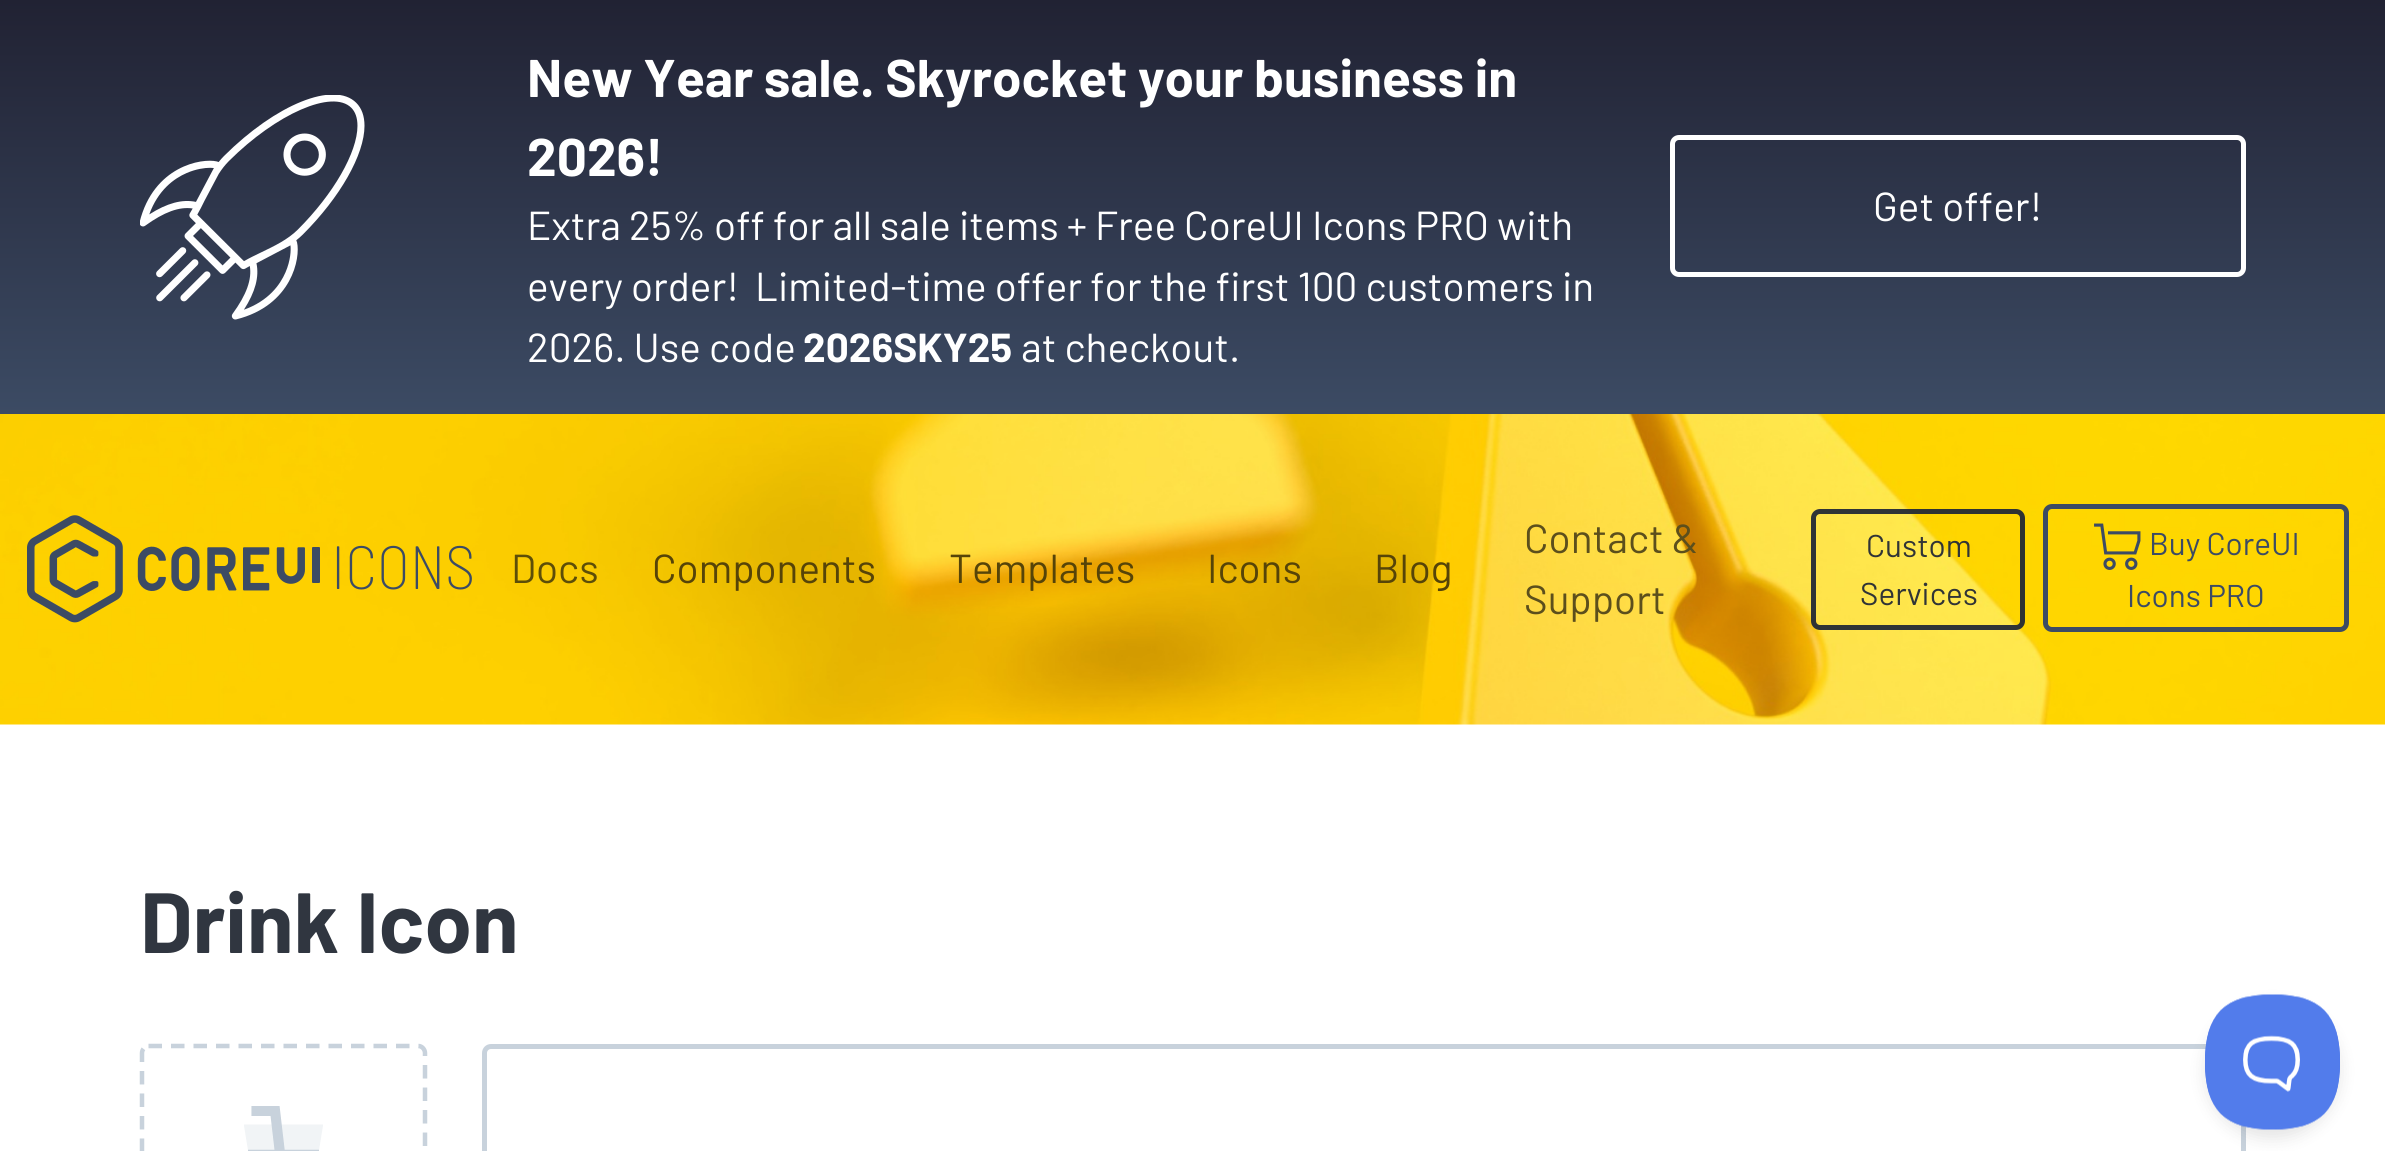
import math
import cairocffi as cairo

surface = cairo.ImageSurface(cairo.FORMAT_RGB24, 2385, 1151)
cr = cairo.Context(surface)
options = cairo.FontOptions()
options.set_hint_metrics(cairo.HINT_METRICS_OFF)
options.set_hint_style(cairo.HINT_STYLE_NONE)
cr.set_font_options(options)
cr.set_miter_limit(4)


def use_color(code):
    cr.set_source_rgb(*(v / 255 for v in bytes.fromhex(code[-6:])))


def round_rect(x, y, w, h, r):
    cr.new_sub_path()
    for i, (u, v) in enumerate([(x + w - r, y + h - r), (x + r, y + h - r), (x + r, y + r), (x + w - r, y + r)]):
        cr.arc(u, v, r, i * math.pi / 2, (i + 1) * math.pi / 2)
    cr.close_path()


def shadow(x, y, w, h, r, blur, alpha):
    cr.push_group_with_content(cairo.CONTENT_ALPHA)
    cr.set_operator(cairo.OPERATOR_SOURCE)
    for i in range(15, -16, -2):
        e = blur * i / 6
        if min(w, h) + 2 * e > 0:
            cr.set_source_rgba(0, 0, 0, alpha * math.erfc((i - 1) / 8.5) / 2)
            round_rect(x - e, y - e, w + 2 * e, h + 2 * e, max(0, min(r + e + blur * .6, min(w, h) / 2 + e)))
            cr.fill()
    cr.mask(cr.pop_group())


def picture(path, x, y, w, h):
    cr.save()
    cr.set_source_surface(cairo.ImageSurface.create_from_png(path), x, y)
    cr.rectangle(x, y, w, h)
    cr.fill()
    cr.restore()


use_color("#ffffff")
cr.paint()
gradient = cairo.LinearGradient(1193, 0, 1193, 414)
gradient.add_color_stop_rgba(0, 0.129, 0.133, 0.2, 1)
gradient.add_color_stop_rgba(1, 0.235, 0.294, 0.392, 1)
cr.set_source(gradient)
cr.rectangle(0, 0, 2385, 414)
cr.fill()
picture("img1.png", 140, 95, 225, 225)
cr.select_font_face("Barlow", cairo.FONT_SLANT_NORMAL, cairo.FONT_WEIGHT_BOLD)
cr.set_font_size(53)
use_color("#ffffff")
cr.move_to(527, 97)
cr.show_text("New Year sale. Skyrocket your business in")
cr.move_to(527, 176)
cr.show_text("2026!")
cr.select_font_face("Barlow")
cr.set_font_size(40.5)
cr.move_to(527, 240)
cr.show_text("Extra 25% off for all sale items + Free CoreUI Icons PRO with")
cr.move_to(527, 301)
cr.show_text("every order!")
cr.move_to(755, 301)
cr.show_text("Limited-time offer for the first 100 customers in")
cr.move_to(527, 362)
cr.show_text("2026. Use code")
cr.select_font_face("Barlow", cairo.FONT_SLANT_NORMAL, cairo.FONT_WEIGHT_BOLD)
cr.move_to(803, 362)
cr.show_text("2026SKY25")
cr.select_font_face("Barlow")
cr.move_to(1021, 362)
cr.show_text("at checkout.")
round_rect(1672.5, 137.5, 571, 137, 6.5)
cr.set_line_width(5)
cr.stroke()
cr.move_to(1873, 221)
cr.show_text("Get offer!")
picture("img2.png", 0, 414, 2385, 311)
picture("img3.png", 27, 515, 293, 108)
cr.select_font_face("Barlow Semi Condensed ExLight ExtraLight")
cr.set_font_size(61)
use_color("#3c4b64")
cr.move_to(331, 589)
cr.show_text("ICONS")
cr.select_font_face("Barlow")
cr.set_font_size(40.5)
use_color("#5d4e08")
cr.move_to(511, 583)
cr.show_text("Docs")
use_color("#564408")
cr.move_to(652, 583)
cr.show_text("Components")
cr.move_to(949, 583)
cr.show_text("Templates")
cr.move_to(1207, 583)
cr.show_text("Icons")
cr.move_to(1374, 583)
cr.show_text("Blog")
use_color("#5c4f1c")
cr.move_to(1524, 553)
cr.show_text("Contact &")
cr.move_to(1524, 614)
cr.show_text("Support")
round_rect(1813.5, 511.5, 209, 116, 6.5)
cr.set_source_rgba(0.145, 0.169, 0.212, 0.95)
cr.stroke()
cr.set_font_size(31.5)
use_color("#303436")
cr.move_to(1866, 557)
cr.show_text("Custom")
cr.move_to(1860, 605)
cr.show_text("Services")
round_rect(2045.5, 506.5, 301, 123, 6.5)
use_color("#3c4b64")
cr.stroke()
picture("img4.png", 2094, 523, 47, 47)
cr.move_to(2149, 555)
cr.show_text("Buy CoreUI")
cr.move_to(2127, 607)
cr.show_text("Icons PRO")
cr.select_font_face("Barlow", cairo.FONT_SLANT_NORMAL, cairo.FONT_WEIGHT_BOLD)
cr.set_font_size(85.25)
use_color("#303640")
cr.move_to(140, 953)
cr.show_text("Drink Icon")
cr.new_path()
cr.move_to(148.5, 1046)
cr.line_to(418.5, 1046)
cr.curve_to(422, 1046, 425, 1049.5, 425, 1053)
cr.line_to(425, 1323)
cr.curve_to(425, 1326.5, 422, 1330, 418.5, 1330)
cr.line_to(148.5, 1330)
cr.curve_to(145, 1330, 142, 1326.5, 142, 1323)
cr.line_to(142, 1053)
cr.curve_to(142, 1049.5, 145, 1046, 148.5, 1046)
cr.close_path()
use_color("#c8d2dc")
cr.set_line_width(4.5)
cr.set_dash([13.5, 9])
cr.stroke()
picture("img5.png", 244, 1106, 79, 45)
round_rect(484.5, 1046.5, 1759, 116, 6.5)
cr.set_line_width(5)
cr.set_dash([])
cr.stroke()
use_color("#000000")
shadow(2205, 1004, 135, 135, 67.5, 8, 0.1)
picture("img6.png", 2205, 994, 135, 136)
surface.write_to_png("result.png")
